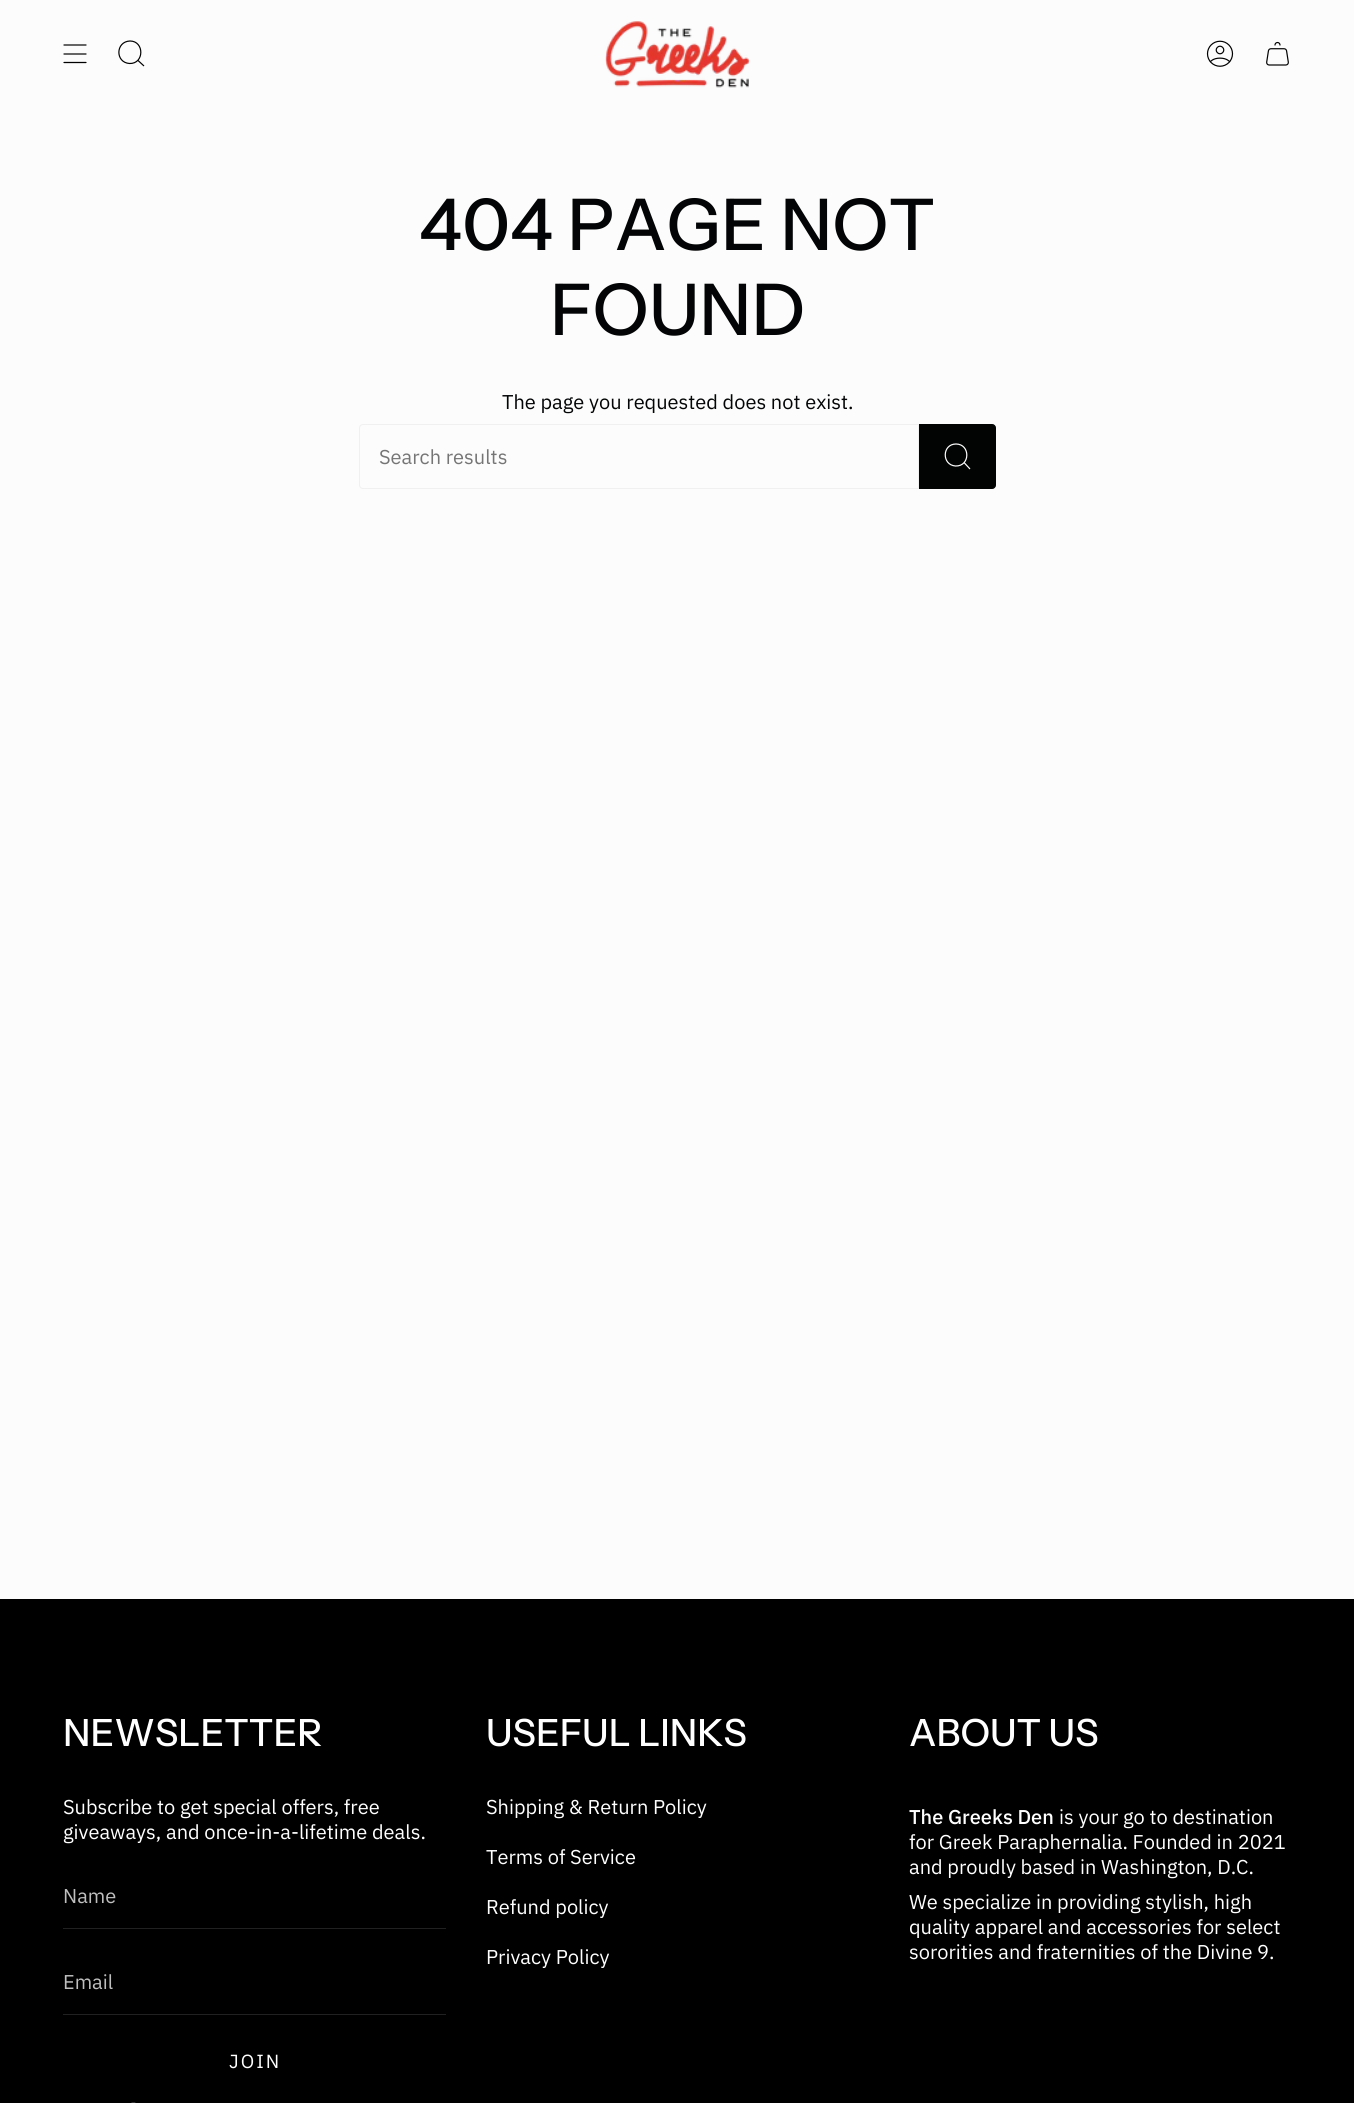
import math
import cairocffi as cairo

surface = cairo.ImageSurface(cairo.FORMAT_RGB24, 1354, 2103)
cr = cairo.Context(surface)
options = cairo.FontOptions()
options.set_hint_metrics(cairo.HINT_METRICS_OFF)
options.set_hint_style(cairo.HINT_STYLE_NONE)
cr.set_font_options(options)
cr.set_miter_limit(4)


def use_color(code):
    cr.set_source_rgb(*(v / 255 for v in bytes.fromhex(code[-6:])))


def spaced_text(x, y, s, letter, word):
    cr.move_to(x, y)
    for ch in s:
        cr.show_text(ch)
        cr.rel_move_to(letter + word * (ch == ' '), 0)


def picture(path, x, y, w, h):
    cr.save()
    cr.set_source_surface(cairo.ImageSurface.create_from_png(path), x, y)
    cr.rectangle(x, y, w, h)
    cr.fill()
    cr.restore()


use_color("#fcfcfc")
cr.paint()
cr.new_path()
cr.move_to(64, 45)
cr.line_to(86, 45)
cr.move_to(64, 54)
cr.line_to(86, 54)
cr.move_to(64, 62.5)
cr.line_to(86, 62.5)
use_color("#000000")
cr.set_line_width(1.2)
cr.set_line_cap(cairo.LINE_CAP_ROUND)
cr.set_line_join(cairo.LINE_JOIN_ROUND)
cr.stroke()
cr.new_path()
cr.move_to(130, 41)
cr.curve_to(144.5, 41, 144.5, 64, 129.5, 63.5)
cr.curve_to(115, 62.5, 115.5, 41.5, 130, 41)
cr.close_path()
cr.move_to(137.5, 60)
cr.line_to(144, 66)
cr.set_line_cap(cairo.LINE_CAP_BUTT)
cr.set_line_join(cairo.LINE_JOIN_MITER)
cr.stroke()
picture("img1.png", 605, 21, 145, 67)
picture("img2.png", 1206, 40, 28, 27)
picture("img3.png", 1266, 41, 23, 25)
cr.select_font_face("Instrument Sans Medium")
cr.set_font_size(71.25)
use_color("#030405")
cr.move_to(419, 250)
cr.show_text("404 PAGE NOT")
cr.move_to(550, 335)
cr.show_text("FOUND")
cr.select_font_face("IBM Plex Sans")
cr.set_font_size(20)
cr.move_to(502, 409)
cr.show_text("The page you requested does not exist.")
cr.new_path()
cr.move_to(363, 424.5)
cr.line_to(918.5, 424.5)
cr.line_to(918.5, 488.5)
cr.line_to(363, 488.5)
cr.curve_to(361, 488.5, 359.5, 487, 359.5, 485)
cr.line_to(359.5, 428)
cr.curve_to(359.5, 426, 361, 424.5, 363, 424.5)
cr.close_path()
use_color("#f0f0f0")
cr.set_line_width(1)
cr.stroke()
use_color("#757575")
cr.move_to(379, 464)
cr.show_text("Search results")
use_color("#020303")
cr.new_path()
cr.move_to(919.5, 424.5)
cr.line_to(992, 424.5)
cr.curve_to(994, 424.5, 995.5, 426, 995.5, 428)
cr.line_to(995.5, 485)
cr.curve_to(995.5, 487, 994, 488.5, 992, 488.5)
cr.line_to(919.5, 488.5)
cr.close_path()
cr.fill_preserve()
cr.stroke()
cr.new_path()
cr.move_to(956, 444)
cr.curve_to(970.5, 444, 970.5, 466.5, 955.5, 466)
cr.curve_to(941.5, 465, 942, 444, 956, 444)
cr.close_path()
cr.move_to(964, 462.5)
cr.line_to(970, 469)
use_color("#ffffff")
cr.set_line_width(1.2)
cr.stroke()
use_color("#000000")
cr.rectangle(0, 1599, 1354, 504)
cr.fill()
cr.select_font_face("Instrument Sans Medium")
cr.set_font_size(37.5)
use_color("#ffffff")
cr.move_to(63, 1746)
cr.show_text("NEWSLETTER")
cr.select_font_face("IBM Plex Sans")
cr.set_font_size(20)
cr.move_to(63, 1814)
cr.show_text("Subscribe to get special offers, free")
cr.move_to(63, 1839)
cr.show_text("giveaways, and once-in-a-lifetime deals.")
use_color("#212121")
cr.rectangle(63, 1928, 383, 1)
cr.fill()
use_color("#bfbfbf")
cr.move_to(63, 1903)
cr.show_text("Name")
use_color("#212121")
cr.rectangle(63, 2014, 383, 1)
cr.fill()
use_color("#bfbfbf")
cr.move_to(63, 1989)
cr.show_text("Email")
cr.set_font_size(19)
use_color("#ffffff")
spaced_text(229, 2068, "JOIN", 2, 0)
picture("img4.png", 131, 2102, 5, 1)
cr.select_font_face("Instrument Sans Medium")
cr.set_font_size(37.5)
cr.move_to(486, 1746)
cr.show_text("USEFUL LINKS")
cr.select_font_face("IBM Plex Sans")
cr.set_font_size(20)
cr.move_to(486, 1814)
cr.show_text("Shipping & Return Policy")
cr.move_to(486, 1864)
cr.show_text("Terms of Service")
cr.move_to(486, 1914)
cr.show_text("Refund policy")
cr.move_to(486, 1964)
cr.show_text("Privacy Policy")
cr.select_font_face("Instrument Sans Medium")
cr.set_font_size(37.5)
cr.move_to(909, 1746)
cr.show_text("ABOUT US")
cr.select_font_face("IBM Plex Sans Medium")
cr.set_font_size(20)
cr.move_to(909, 1824)
cr.show_text("The Greeks Den")
cr.select_font_face("IBM Plex Sans")
cr.move_to(1059, 1824)
cr.show_text("is your go to destination")
cr.move_to(909, 1849)
cr.show_text("for Greek Paraphernalia. Founded in 2021")
cr.move_to(909, 1874)
cr.show_text("and proudly based in Washington, D.C.")
cr.move_to(909, 1909)
cr.show_text("We specialize in providing stylish, high")
cr.move_to(909, 1934)
cr.show_text("quality apparel and accessories for select")
cr.move_to(909, 1959)
cr.show_text("sororities and fraternities of the Divine 9.")
surface.write_to_png("result.png")
